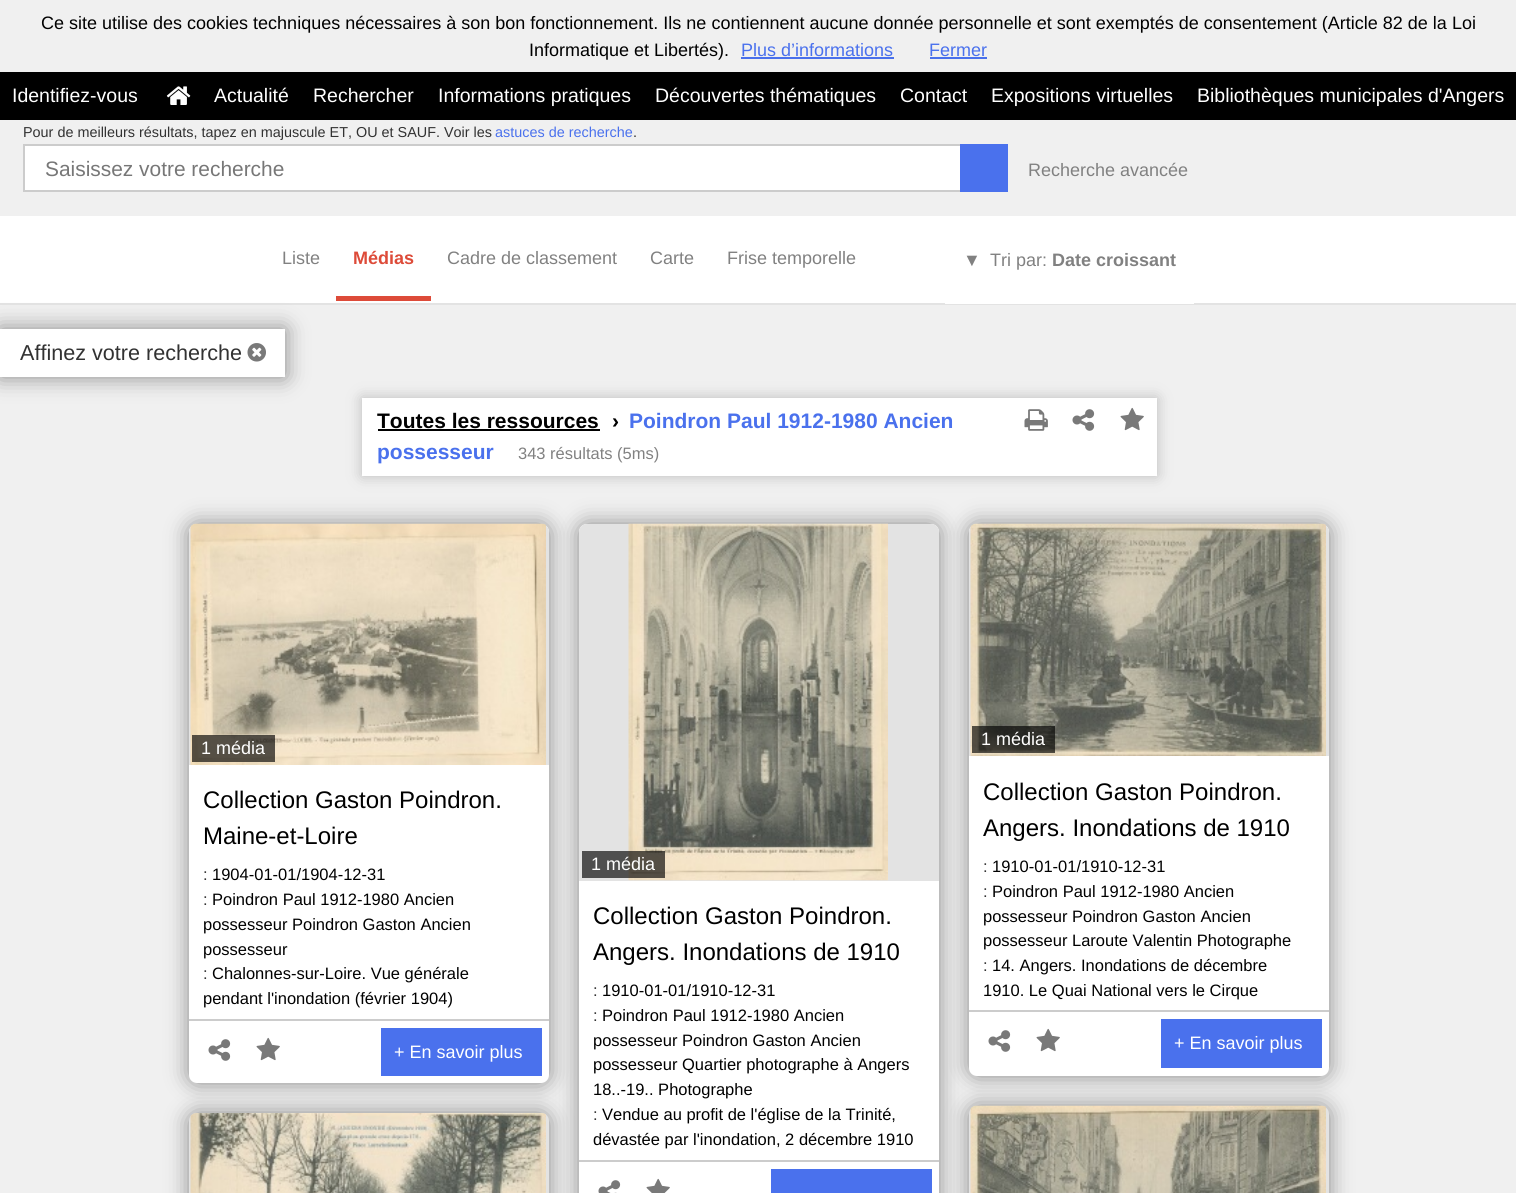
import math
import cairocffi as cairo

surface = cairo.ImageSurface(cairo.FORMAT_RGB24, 1516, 1193)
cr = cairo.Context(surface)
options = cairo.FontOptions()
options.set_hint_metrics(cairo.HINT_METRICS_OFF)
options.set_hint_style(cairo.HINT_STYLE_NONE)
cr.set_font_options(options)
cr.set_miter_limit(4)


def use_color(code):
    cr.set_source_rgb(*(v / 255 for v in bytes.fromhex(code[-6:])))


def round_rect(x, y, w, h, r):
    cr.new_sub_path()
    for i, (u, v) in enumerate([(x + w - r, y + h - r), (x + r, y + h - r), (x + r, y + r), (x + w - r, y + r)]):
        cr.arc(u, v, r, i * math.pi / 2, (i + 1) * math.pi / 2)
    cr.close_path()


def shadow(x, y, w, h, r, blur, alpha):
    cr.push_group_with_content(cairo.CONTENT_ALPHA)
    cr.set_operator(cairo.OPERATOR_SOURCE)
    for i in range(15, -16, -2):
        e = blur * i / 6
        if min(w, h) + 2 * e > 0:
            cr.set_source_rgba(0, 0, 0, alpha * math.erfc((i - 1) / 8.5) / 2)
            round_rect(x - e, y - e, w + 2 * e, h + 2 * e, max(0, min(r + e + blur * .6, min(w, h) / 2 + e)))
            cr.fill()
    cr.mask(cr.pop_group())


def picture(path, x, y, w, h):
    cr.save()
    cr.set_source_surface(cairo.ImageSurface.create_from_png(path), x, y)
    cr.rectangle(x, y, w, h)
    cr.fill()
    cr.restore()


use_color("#f0f0f0")
cr.paint()
cr.select_font_face("Liberation Sans")
cr.set_font_size(18)
use_color("#000000")
cr.move_to(41, 29)
cr.show_text("Ce site utilise des cookies techniques nécessaires à son bon fonctionnement. Ils ne contiennent aucune donnée personnelle et sont exemptés de consentement (Article 82 de la Loi")
cr.move_to(529, 56)
cr.show_text("Informatique et Libertés).")
use_color("#4a71ed")
cr.move_to(741, 56)
cr.show_text("Plus d’informations")
use_color("#4970ec")
cr.rectangle(741, 57, 153, 2)
cr.fill()
use_color("#4a71ed")
cr.move_to(929, 56)
cr.show_text("Fermer")
use_color("#4970ec")
cr.rectangle(930, 57, 57, 2)
cr.fill()
use_color("#000000")
cr.rectangle(0, 72, 1516, 48)
cr.fill()
cr.set_font_size(19.5)
use_color("#ffffff")
cr.move_to(12, 102)
cr.show_text("Identifiez-vous")
picture("img1.png", 166, 86, 25, 19)
cr.move_to(214, 102)
cr.show_text("Actualité")
cr.move_to(313, 102)
cr.show_text("Rechercher")
cr.move_to(438, 102)
cr.show_text("Informations pratiques")
cr.move_to(655, 102)
cr.show_text("Découvertes thématiques")
cr.move_to(900, 102)
cr.show_text("Contact")
cr.move_to(991, 102)
cr.show_text("Expositions virtuelles")
cr.move_to(1197, 102)
cr.show_text("Bibliothèques municipales d'Angers")
cr.set_font_size(14.4)
use_color("#323232")
cr.move_to(23, 137)
cr.show_text("Pour de meilleurs résultats, tapez en majuscule ET, OU et SAUF. Voir les")
use_color("#4a71ed")
cr.move_to(495, 137)
cr.show_text("astuces de recherche")
use_color("#323232")
cr.move_to(633, 137)
cr.show_text(".")
use_color("#ffffff")
cr.rectangle(25, 146, 935, 44)
cr.fill()
cr.rectangle(24, 145, 983, 46)
use_color("#cccccc")
cr.stroke()
cr.set_font_size(20.9)
use_color("#777777")
cr.move_to(45, 176)
cr.show_text("Saisissez votre recherche")
use_color("#4a71ed")
cr.rectangle(960, 144, 48, 48)
cr.fill()
cr.set_font_size(18)
use_color("#818181")
cr.move_to(1028, 176)
cr.show_text("Recherche avancée")
use_color("#ffffff")
cr.rectangle(0, 216, 1516, 87)
cr.fill()
use_color("#e3e3e3")
cr.rectangle(0, 303, 1516, 2)
cr.fill()
use_color("#818181")
cr.move_to(282, 264)
cr.show_text("Liste")
use_color("#dd4b39")
cr.rectangle(336, 296, 95, 5)
cr.fill()
cr.select_font_face("Liberation Sans", cairo.FONT_SLANT_NORMAL, cairo.FONT_WEIGHT_BOLD)
cr.move_to(353, 264)
cr.show_text("Médias")
cr.select_font_face("Liberation Sans")
use_color("#818181")
cr.move_to(447, 264)
cr.show_text("Cadre de classement")
cr.move_to(650, 264)
cr.show_text("Carte")
cr.move_to(727, 264)
cr.show_text("Frise temporelle")
use_color("#ffffff")
cr.rectangle(945, 303, 249, 1)
cr.fill()
use_color("#818181")
cr.move_to(963, 266)
cr.show_text("▼")
cr.move_to(990, 266)
cr.show_text("Tri par:")
cr.select_font_face("Liberation Sans", cairo.FONT_SLANT_NORMAL, cairo.FONT_WEIGHT_BOLD)
cr.move_to(1052, 266)
cr.show_text("Date croissant")
use_color("#888888")
shadow(0, 329, 285, 48, 0, 11, 1)
use_color("#ffffff")
cr.rectangle(0, 329, 285, 48)
cr.fill()
cr.select_font_face("Liberation Sans")
cr.set_font_size(21.6)
use_color("#323232")
cr.move_to(20, 360)
cr.show_text("Affinez votre recherche")
picture("img2.png", 247, 343, 19, 19)
use_color("#bbbbbb")
shadow(362, 398, 795, 78, 0, 7, 1)
use_color("#ffffff")
cr.rectangle(362, 398, 795, 78)
cr.fill()
cr.select_font_face("Liberation Sans", cairo.FONT_SLANT_NORMAL, cairo.FONT_WEIGHT_BOLD)
cr.set_font_size(21)
use_color("#000000")
cr.move_to(377, 428)
cr.show_text("Toutes les ressources")
cr.rectangle(378, 429, 222, 2)
cr.fill()
cr.move_to(612, 428)
cr.show_text("›")
use_color("#4a71ed")
cr.move_to(629, 428)
cr.show_text("Poindron Paul 1912-1980 Ancien")
cr.move_to(377, 459)
cr.show_text("possesseur")
cr.select_font_face("Liberation Sans")
cr.set_font_size(16.5)
use_color("#818181")
cr.move_to(518, 459)
cr.show_text("343 résultats (5ms)")
picture("img3.png", 1024, 409, 24, 22)
picture("img4.png", 1072, 409, 23, 22)
picture("img5.png", 1120, 407, 24, 24)
use_color("#888888")
shadow(189, 524, 360, 559, 8, 11, 1)
use_color("#ffffff")
round_rect(189, 524, 360, 559, 8)
cr.fill()
use_color("#e3e3e3")
cr.new_path()
cr.move_to(197, 524)
cr.line_to(541, 524)
cr.curve_to(545.5, 524, 549, 527.5, 549, 532)
cr.line_to(549, 765)
cr.line_to(189, 765)
cr.line_to(189, 532)
cr.curve_to(189, 527.5, 192.5, 524, 197, 524)
cr.close_path()
cr.fill()
picture("img6.png", 190, 523, 356, 242)
cr.set_source_rgba(0, 0, 0, 0.65)
cr.rectangle(192, 735, 83, 27)
cr.fill()
cr.set_font_size(18)
use_color("#ffffff")
cr.move_to(201, 754)
cr.show_text("1 média")
cr.set_font_size(24)
use_color("#000000")
cr.move_to(203, 808)
cr.show_text("Collection Gaston Poindron.")
cr.move_to(203, 844)
cr.show_text("Maine-et-Loire")
cr.set_font_size(16.5)
use_color("#323232")
cr.move_to(203, 880)
cr.show_text(":")
use_color("#000000")
cr.move_to(212, 880)
cr.show_text("1904-01-01/1904-12-31")
use_color("#323232")
cr.move_to(203, 905)
cr.show_text(":")
use_color("#000000")
cr.move_to(212, 905)
cr.show_text("Poindron Paul 1912-1980 Ancien")
cr.move_to(203, 930)
cr.show_text("possesseur Poindron Gaston Ancien")
cr.move_to(203, 955)
cr.show_text("possesseur")
use_color("#323232")
cr.move_to(203, 979)
cr.show_text(":")
use_color("#000000")
cr.move_to(212, 979)
cr.show_text("Chalonnes-sur-Loire. Vue générale")
cr.move_to(203, 1004)
cr.show_text("pendant l'inondation (février 1904)")
use_color("#cccccc")
cr.rectangle(189, 1019, 360, 2)
cr.fill()
picture("img4.png", 208, 1039, 23, 22)
picture("img5.png", 256, 1037, 24, 24)
use_color("#4a71ed")
cr.rectangle(381, 1028, 161, 48)
cr.fill()
cr.set_font_size(18)
use_color("#ffffff")
cr.move_to(394, 1058)
cr.show_text("+ En savoir plus")
use_color("#888888")
shadow(579, 524, 360, 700, 8, 11, 1)
use_color("#ffffff")
cr.new_path()
cr.move_to(587, 524)
cr.line_to(931, 524)
cr.curve_to(935.5, 524, 939, 527.5, 939, 532)
cr.line_to(939, 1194)
cr.line_to(579, 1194)
cr.line_to(579, 532)
cr.curve_to(579, 527.5, 582.5, 524, 587, 524)
cr.close_path()
cr.fill()
use_color("#e3e3e3")
cr.new_path()
cr.move_to(587, 524)
cr.line_to(931, 524)
cr.curve_to(935.5, 524, 939, 527.5, 939, 532)
cr.line_to(939, 881)
cr.line_to(579, 881)
cr.line_to(579, 532)
cr.curve_to(579, 527.5, 582.5, 524, 587, 524)
cr.close_path()
cr.fill()
picture("img7.png", 628, 523, 260, 358)
cr.set_source_rgba(0, 0, 0, 0.65)
cr.rectangle(582, 851, 83, 27)
cr.fill()
use_color("#ffffff")
cr.move_to(591, 870)
cr.show_text("1 média")
cr.set_font_size(24)
use_color("#000000")
cr.move_to(593, 924)
cr.show_text("Collection Gaston Poindron.")
cr.move_to(593, 960)
cr.show_text("Angers. Inondations de 1910")
cr.set_font_size(16.5)
use_color("#323232")
cr.move_to(593, 996)
cr.show_text(":")
use_color("#000000")
cr.move_to(602, 996)
cr.show_text("1910-01-01/1910-12-31")
use_color("#323232")
cr.move_to(593, 1021)
cr.show_text(":")
use_color("#000000")
cr.move_to(602, 1021)
cr.show_text("Poindron Paul 1912-1980 Ancien")
cr.move_to(593, 1046)
cr.show_text("possesseur Poindron Gaston Ancien")
cr.move_to(593, 1070)
cr.show_text("possesseur Quartier photographe à Angers")
cr.move_to(593, 1095)
cr.show_text("18..-19.. Photographe")
use_color("#323232")
cr.move_to(593, 1120)
cr.show_text(":")
use_color("#000000")
cr.move_to(602, 1120)
cr.show_text("Vendue au profit de l'église de la Trinité,")
cr.move_to(593, 1145)
cr.show_text("dévastée par l'inondation, 2 décembre 1910")
use_color("#cccccc")
cr.rectangle(579, 1160, 360, 2)
cr.fill()
picture("img8.png", 598, 1180, 23, 13)
picture("img9.png", 646, 1178, 24, 15)
use_color("#4a71ed")
cr.rectangle(771, 1169, 161, 24)
cr.fill()
use_color("#888888")
shadow(969, 524, 360, 552, 8, 11, 1)
use_color("#ffffff")
round_rect(969, 524, 360, 552, 8)
cr.fill()
use_color("#e3e3e3")
cr.new_path()
cr.move_to(977, 524)
cr.line_to(1321, 524)
cr.curve_to(1325.5, 524, 1329, 527.5, 1329, 532)
cr.line_to(1329, 756)
cr.line_to(969, 756)
cr.line_to(969, 532)
cr.curve_to(969, 527.5, 972.5, 524, 977, 524)
cr.close_path()
cr.fill()
picture("img10.png", 970, 523, 356, 233)
cr.set_source_rgba(0, 0, 0, 0.65)
cr.rectangle(972, 726, 83, 27)
cr.fill()
cr.set_font_size(18)
use_color("#ffffff")
cr.move_to(981, 745)
cr.show_text("1 média")
cr.set_font_size(24)
use_color("#000000")
cr.move_to(983, 800)
cr.show_text("Collection Gaston Poindron.")
cr.move_to(983, 836)
cr.show_text("Angers. Inondations de 1910")
cr.set_font_size(16.5)
use_color("#323232")
cr.move_to(983, 872)
cr.show_text(":")
use_color("#000000")
cr.move_to(992, 872)
cr.show_text("1910-01-01/1910-12-31")
use_color("#323232")
cr.move_to(983, 897)
cr.show_text(":")
use_color("#000000")
cr.move_to(992, 897)
cr.show_text("Poindron Paul 1912-1980 Ancien")
cr.move_to(983, 922)
cr.show_text("possesseur Poindron Gaston Ancien")
cr.move_to(983, 946)
cr.show_text("possesseur Laroute Valentin Photographe")
use_color("#323232")
cr.move_to(983, 971)
cr.show_text(":")
use_color("#000000")
cr.move_to(992, 971)
cr.show_text("14. Angers. Inondations de décembre")
cr.move_to(983, 996)
cr.show_text("1910. Le Quai National vers le Cirque")
use_color("#cccccc")
cr.rectangle(969, 1010, 360, 2)
cr.fill()
picture("img4.png", 988, 1030, 23, 22)
picture("img5.png", 1036, 1028, 24, 24)
use_color("#4a71ed")
cr.rectangle(1161, 1019, 161, 49)
cr.fill()
cr.set_font_size(18)
use_color("#ffffff")
cr.move_to(1174, 1049)
cr.show_text("+ En savoir plus")
use_color("#888888")
shadow(189, 1113, 360, 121, 8, 11, 1)
use_color("#e3e3e3")
cr.new_path()
cr.move_to(197, 1113)
cr.line_to(541, 1113)
cr.curve_to(545.5, 1113, 549, 1116.5, 549, 1121)
cr.line_to(549, 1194)
cr.line_to(189, 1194)
cr.line_to(189, 1121)
cr.curve_to(189, 1116.5, 192.5, 1113, 197, 1113)
cr.close_path()
cr.fill()
picture("img11.png", 190, 1113, 356, 80)
use_color("#888888")
shadow(969, 1106, 360, 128, 8, 11, 1)
use_color("#e3e3e3")
cr.new_path()
cr.move_to(977, 1106)
cr.line_to(1321, 1106)
cr.curve_to(1325.5, 1106, 1329, 1109.5, 1329, 1114)
cr.line_to(1329, 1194)
cr.line_to(969, 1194)
cr.line_to(969, 1114)
cr.curve_to(969, 1109.5, 972.5, 1106, 977, 1106)
cr.close_path()
cr.fill()
picture("img12.png", 970, 1105, 356, 88)
surface.write_to_png("result.png")
